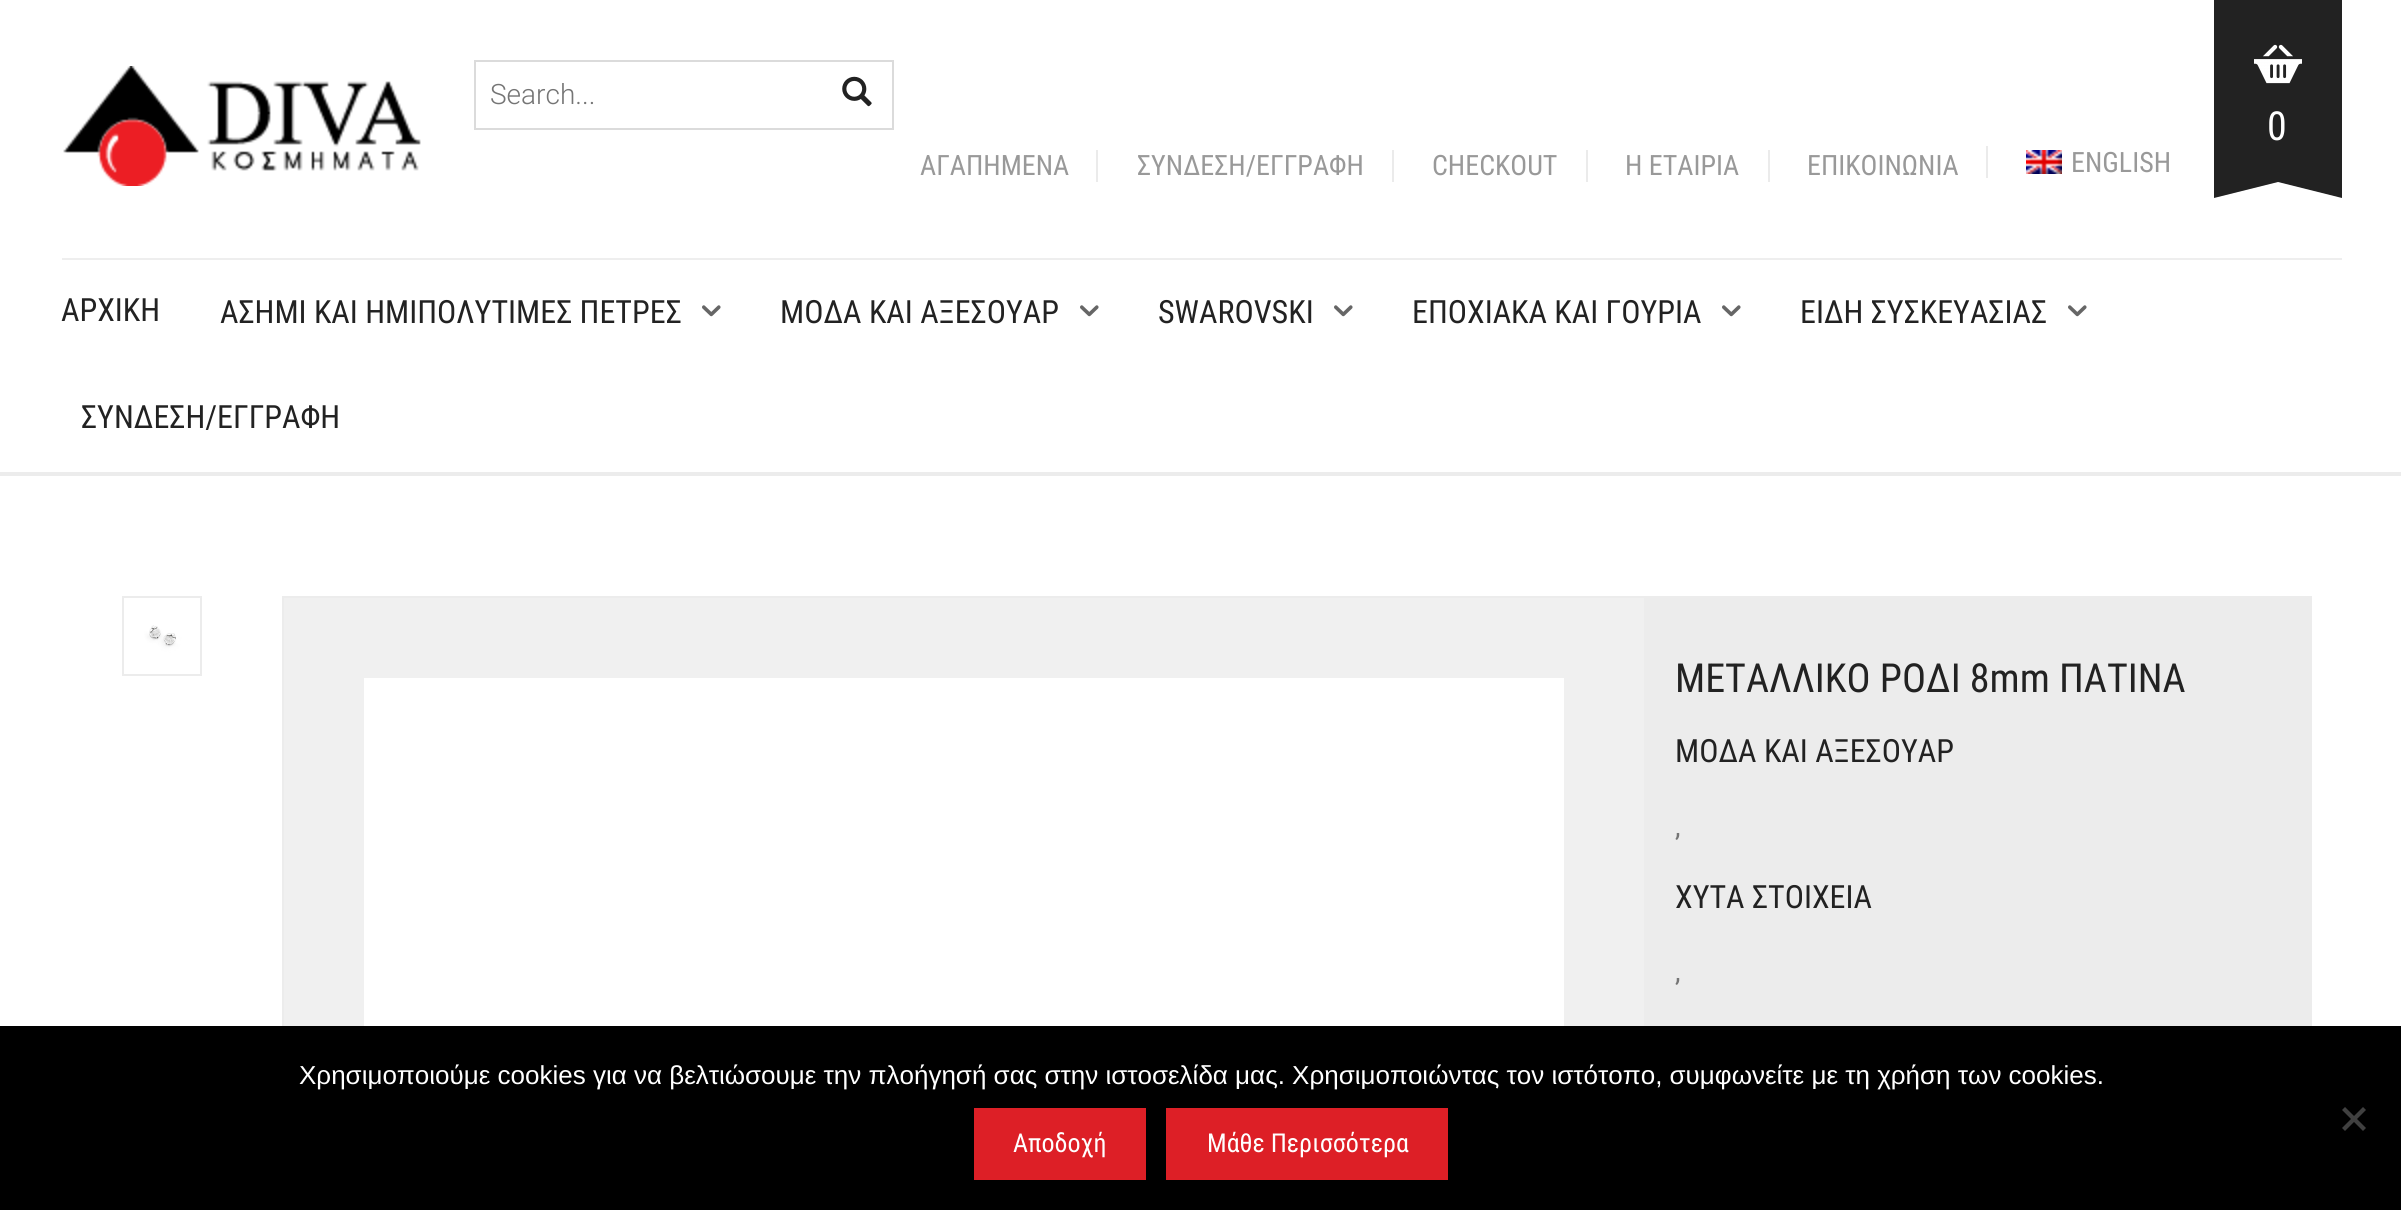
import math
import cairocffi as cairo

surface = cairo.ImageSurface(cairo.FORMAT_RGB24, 2401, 1210)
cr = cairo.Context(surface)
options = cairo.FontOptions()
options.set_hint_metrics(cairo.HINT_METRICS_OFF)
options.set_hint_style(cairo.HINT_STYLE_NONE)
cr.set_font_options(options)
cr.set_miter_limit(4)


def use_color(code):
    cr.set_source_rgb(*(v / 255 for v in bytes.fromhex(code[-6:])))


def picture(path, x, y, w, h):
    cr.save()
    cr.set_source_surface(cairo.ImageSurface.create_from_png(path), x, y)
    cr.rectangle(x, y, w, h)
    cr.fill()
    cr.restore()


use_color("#ffffff")
cr.paint()
picture("img1.png", 63, 66, 358, 120)
cr.rectangle(475, 61, 418, 68)
use_color("#dbdbdb")
cr.stroke()
cr.select_font_face("Roboto Light")
cr.set_font_size(28)
use_color("#757575")
cr.move_to(490, 104)
cr.show_text("Search...")
picture("img2.png", 842, 76, 30, 31)
cr.select_font_face("Roboto Condensed")
use_color("#999999")
cr.move_to(920, 175)
cr.show_text("ΑΓΑΠΗΜΕΝΑ")
use_color("#ebebeb")
cr.rectangle(1096, 150, 2, 32)
cr.fill()
use_color("#999999")
cr.move_to(1137, 175)
cr.show_text("ΣΥΝΔΕΣΗ/ΕΓΓΡΑΦΗ")
use_color("#ebebeb")
cr.rectangle(1392, 150, 2, 32)
cr.fill()
use_color("#999999")
cr.move_to(1432, 175)
cr.show_text("CHECKOUT")
use_color("#ebebeb")
cr.rectangle(1586, 150, 2, 32)
cr.fill()
use_color("#999999")
cr.move_to(1625, 175)
cr.show_text("Η ΕΤΑΙΡΙΑ")
use_color("#ebebeb")
cr.rectangle(1768, 150, 2, 32)
cr.fill()
use_color("#999999")
cr.move_to(1807, 175)
cr.show_text("ΕΠΙΚΟΙΝΩΝΙΑ")
use_color("#ebebeb")
cr.rectangle(1986, 146, 2, 32)
cr.fill()
picture("img3.png", 2026, 150, 36, 24)
use_color("#999999")
cr.move_to(2071, 172)
cr.show_text("ENGLISH")
use_color("#222222")
cr.rectangle(2214, 0, 128, 182)
cr.fill()
picture("img4.png", 2254, 44, 48, 40)
cr.set_font_size(40)
use_color("#ffffff")
cr.move_to(2267, 140)
cr.show_text("0")
use_color("#222222")
cr.new_path()
cr.move_to(2342, 166)
cr.line_to(2342, 198)
cr.line_to(2278, 182)
cr.close_path()
cr.fill()
cr.new_path()
cr.move_to(2214, 198)
cr.line_to(2214, 166)
cr.line_to(2278, 182)
cr.close_path()
cr.fill()
use_color("#ececec")
cr.rectangle(0, 472, 2401, 4)
cr.fill()
use_color("#eeeeee")
cr.rectangle(62, 258, 2280, 2)
cr.fill()
cr.set_font_size(32)
use_color("#222222")
cr.move_to(61, 321)
cr.show_text("ΑΡΧΙΚΗ")
cr.move_to(220, 323)
cr.show_text("ΑΣΗΜΙ ΚΑΙ ΗΜΙΠΟΛΥΤΙΜΕΣ ΠΕΤΡΕΣ")
picture("img5.png", 702, 305, 19, 12)
cr.move_to(780, 323)
cr.show_text("MOΔA KAI ΑΞΕΣΟΥΑΡ")
picture("img5.png", 1080, 305, 19, 12)
cr.move_to(1158, 323)
cr.show_text("SWAROVSKI")
picture("img5.png", 1334, 305, 19, 12)
cr.move_to(1412, 323)
cr.show_text("EΠOXIAKA KAI ΓΟΥΡΙΑ")
picture("img5.png", 1722, 305, 19, 12)
cr.move_to(1800, 323)
cr.show_text("ΕΙΔΗ ΣΥΣΚΕΥΑΣΙΑΣ")
picture("img5.png", 2068, 305, 19, 12)
cr.move_to(81, 428)
cr.show_text("ΣΥΝΔΕΣΗ/ΕΓΓΡΑΦΗ")
cr.rectangle(123, 597, 78, 78)
use_color("#ececec")
cr.stroke()
picture("img6.png", 124, 598, 76, 76)
cr.rectangle(283, 597, 1362, 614)
cr.stroke()
use_color("#f0f0f0")
cr.rectangle(284, 598, 1360, 428)
cr.fill()
picture("img7.png", 364, 678, 1200, 348)
use_color("#ececec")
cr.rectangle(1646, 596, 666, 430)
cr.fill()
cr.set_font_size(40)
use_color("#222222")
cr.move_to(1675, 692)
cr.show_text("ΜΕΤΑΛΛΙΚΟ ΡΟΔΙ 8mm ΠΑΤΙΝΑ")
cr.set_font_size(32)
cr.move_to(1675, 762)
cr.show_text("MOΔA KAI ΑΞΕΣΟΥΑΡ")
cr.select_font_face("Roboto")
cr.set_font_size(28)
use_color("#757575")
cr.move_to(1675, 836)
cr.show_text(",")
cr.select_font_face("Roboto Condensed")
cr.set_font_size(32)
use_color("#222222")
cr.move_to(1675, 908)
cr.show_text("ΧΥΤΑ ΣΤΟΙΧΕΙΑ")
cr.select_font_face("Roboto")
cr.set_font_size(28)
use_color("#757575")
cr.move_to(1675, 981)
cr.show_text(",")
use_color("#000000")
cr.rectangle(0, 1026, 2401, 184)
cr.fill()
cr.select_font_face("Liberation Sans")
cr.set_font_size(26)
use_color("#ffffff")
cr.move_to(299, 1084)
cr.show_text("Χρησιμοποιούμε cookies για να βελτιώσουμε την πλοήγησή σας στην ιστοσελίδα μας. Χρησιμοποιώντας τον ιστότοπο, συμφωνείτε με τη χρήση των cookies.")
use_color("#404040")
cr.new_path()
cr.move_to(2363, 1107)
cr.line_to(2366, 1110)
cr.line_to(2345, 1131)
cr.line_to(2342, 1128)
cr.close_path()
cr.fill()
cr.new_path()
cr.move_to(2342, 1110)
cr.line_to(2345, 1107)
cr.line_to(2366, 1128)
cr.line_to(2363, 1131)
cr.close_path()
cr.fill()
use_color("#dd1f26")
cr.rectangle(974, 1108, 172, 72)
cr.fill()
cr.select_font_face("Roboto Condensed")
use_color("#ffffff")
cr.move_to(1013, 1152)
cr.show_text("Αποδοχή")
use_color("#dd1f26")
cr.rectangle(1166, 1108, 282, 72)
cr.fill()
use_color("#ffffff")
cr.move_to(1207, 1152)
cr.show_text("Μάθε Περισσότερα")
surface.write_to_png("result.png")
